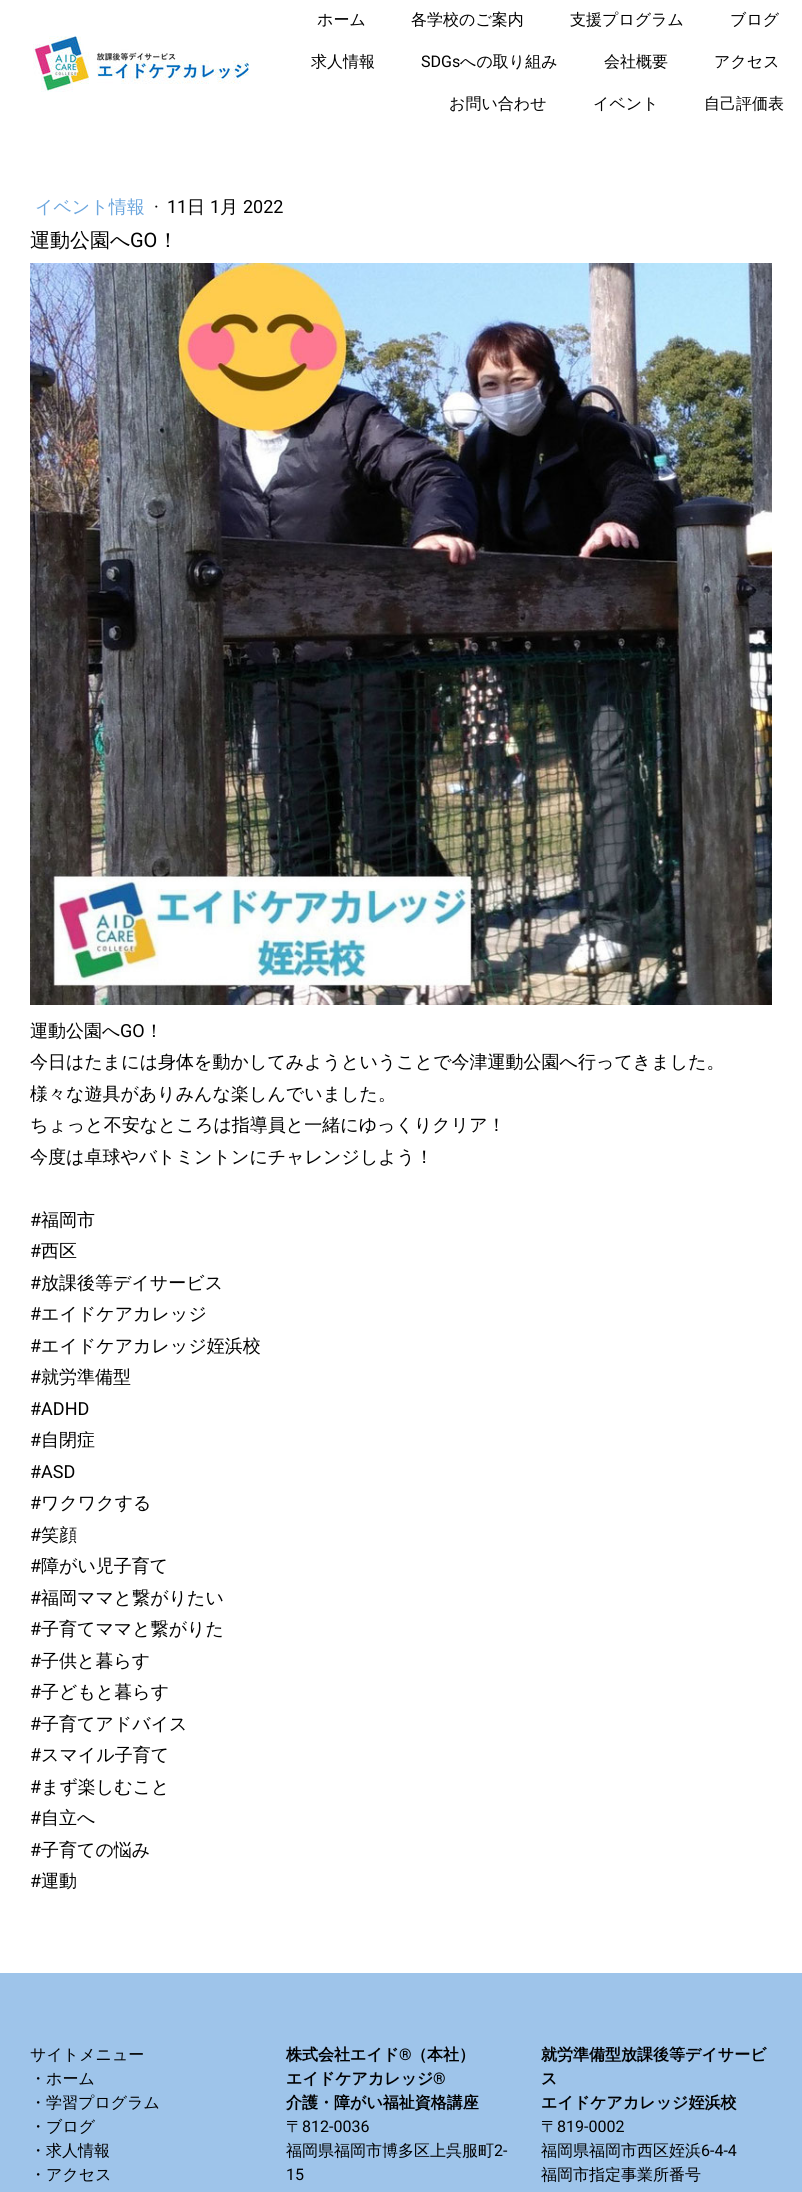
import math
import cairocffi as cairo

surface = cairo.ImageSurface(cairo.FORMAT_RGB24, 802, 2192)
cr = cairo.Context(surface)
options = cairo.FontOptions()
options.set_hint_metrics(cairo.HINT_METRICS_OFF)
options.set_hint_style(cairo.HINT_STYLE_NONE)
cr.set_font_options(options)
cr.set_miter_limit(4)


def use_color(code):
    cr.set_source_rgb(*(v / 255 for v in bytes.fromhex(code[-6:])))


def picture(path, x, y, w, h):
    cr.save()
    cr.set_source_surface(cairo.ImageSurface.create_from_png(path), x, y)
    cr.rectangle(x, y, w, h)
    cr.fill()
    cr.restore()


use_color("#ffffff")
cr.paint()
picture("img1.png", 33, 36, 216, 56)
cr.select_font_face("WenQuanYi Zen Hei Medium")
cr.set_font_size(16)
use_color("#000000")
cr.move_to(317, 25)
cr.show_text("ホーム")
cr.move_to(411, 25)
cr.show_text("各学校のご案内")
cr.move_to(570, 25)
cr.show_text("支援プログラム")
cr.move_to(730, 25)
cr.show_text("ブログ")
cr.move_to(311, 67)
cr.show_text("求人情報")
cr.select_font_face("Roboto")
cr.move_to(421, 67)
cr.show_text("SDGs")
cr.select_font_face("WenQuanYi Zen Hei Medium")
cr.move_to(460, 67)
cr.show_text("への取り組み")
cr.move_to(604, 67)
cr.show_text("会社概要")
cr.move_to(714, 67)
cr.show_text("アクセス")
cr.move_to(449, 109)
cr.show_text("お問い合わせ")
cr.move_to(593, 109)
cr.show_text("イベント")
cr.move_to(704, 109)
cr.show_text("自己評価表")
cr.set_font_size(18)
use_color("#6da7de")
cr.move_to(35, 213)
cr.show_text("イベント情報")
cr.select_font_face("Roboto")
use_color("#000000")
cr.move_to(154, 213)
cr.show_text("·")
cr.move_to(167, 213)
cr.show_text("11")
cr.select_font_face("WenQuanYi Zen Hei Medium")
cr.move_to(187, 213)
cr.show_text("日")
cr.select_font_face("Roboto")
cr.move_to(210, 213)
cr.show_text("1")
cr.select_font_face("WenQuanYi Zen Hei Medium")
cr.move_to(220, 213)
cr.show_text("月")
cr.select_font_face("Roboto")
cr.move_to(243, 213)
cr.show_text("2022")
cr.select_font_face("WenQuanYi Zen Hei Medium")
cr.set_font_size(20)
cr.move_to(30, 247)
cr.show_text("運動公園へ")
cr.select_font_face("Roboto")
cr.move_to(130, 247)
cr.show_text("GO")
cr.select_font_face("WenQuanYi Zen Hei Medium")
cr.move_to(158, 247)
cr.show_text("！")
picture("img2.png", 30, 263, 742, 742)
cr.set_font_size(18)
cr.move_to(30, 1037)
cr.show_text("運動公園へ")
cr.select_font_face("Roboto")
cr.move_to(120, 1037)
cr.show_text("GO")
cr.select_font_face("WenQuanYi Zen Hei Medium")
cr.move_to(145, 1037)
cr.show_text("！")
cr.move_to(30, 1068)
cr.show_text("今日はたまには身体を動かしてみようということで今津運動公園へ行ってきました。")
cr.move_to(30, 1100)
cr.show_text("様々な遊具がありみんな楽しんでいました。")
cr.move_to(30, 1131)
cr.show_text("ちょっと不安なところは指導員と一緒にゆっくりクリア！")
cr.move_to(30, 1163)
cr.show_text("今度は卓球やバトミントンにチャレンジしよう！")
cr.select_font_face("Roboto")
cr.move_to(30, 1226)
cr.show_text("#")
cr.select_font_face("WenQuanYi Zen Hei Medium")
cr.move_to(41, 1226)
cr.show_text("福岡市")
cr.select_font_face("Roboto")
cr.move_to(30, 1257)
cr.show_text("#")
cr.select_font_face("WenQuanYi Zen Hei Medium")
cr.move_to(41, 1257)
cr.show_text("西区")
cr.select_font_face("Roboto")
cr.move_to(30, 1289)
cr.show_text("#")
cr.select_font_face("WenQuanYi Zen Hei Medium")
cr.move_to(41, 1289)
cr.show_text("放課後等デイサービス")
cr.select_font_face("Roboto")
cr.move_to(30, 1320)
cr.show_text("#")
cr.select_font_face("WenQuanYi Zen Hei Medium")
cr.move_to(41, 1320)
cr.show_text("エイドケアカレッジ")
cr.select_font_face("Roboto")
cr.move_to(30, 1352)
cr.show_text("#")
cr.select_font_face("WenQuanYi Zen Hei Medium")
cr.move_to(41, 1352)
cr.show_text("エイドケアカレッジ姪浜校")
cr.select_font_face("Roboto")
cr.move_to(30, 1383)
cr.show_text("#")
cr.select_font_face("WenQuanYi Zen Hei Medium")
cr.move_to(41, 1383)
cr.show_text("就労準備型")
cr.select_font_face("Roboto")
cr.move_to(30, 1415)
cr.show_text("#ADHD")
cr.move_to(30, 1446)
cr.show_text("#")
cr.select_font_face("WenQuanYi Zen Hei Medium")
cr.move_to(41, 1446)
cr.show_text("自閉症")
cr.select_font_face("Roboto")
cr.move_to(30, 1478)
cr.show_text("#ASD")
cr.move_to(30, 1509)
cr.show_text("#")
cr.select_font_face("WenQuanYi Zen Hei Medium")
cr.move_to(41, 1509)
cr.show_text("ワクワクする")
cr.select_font_face("Roboto")
cr.move_to(30, 1541)
cr.show_text("#")
cr.select_font_face("WenQuanYi Zen Hei Medium")
cr.move_to(41, 1541)
cr.show_text("笑顔")
cr.select_font_face("Roboto")
cr.move_to(30, 1572)
cr.show_text("#")
cr.select_font_face("WenQuanYi Zen Hei Medium")
cr.move_to(41, 1572)
cr.show_text("障がい児子育て")
cr.select_font_face("Roboto")
cr.move_to(30, 1604)
cr.show_text("#")
cr.select_font_face("WenQuanYi Zen Hei Medium")
cr.move_to(41, 1604)
cr.show_text("福岡ママと繋がりたい")
cr.select_font_face("Roboto")
cr.move_to(30, 1635)
cr.show_text("#")
cr.select_font_face("WenQuanYi Zen Hei Medium")
cr.move_to(41, 1635)
cr.show_text("子育てママと繋がりた")
cr.select_font_face("Roboto")
cr.move_to(30, 1667)
cr.show_text("#")
cr.select_font_face("WenQuanYi Zen Hei Medium")
cr.move_to(41, 1667)
cr.show_text("子供と暮らす")
cr.select_font_face("Roboto")
cr.move_to(30, 1698)
cr.show_text("#")
cr.select_font_face("WenQuanYi Zen Hei Medium")
cr.move_to(41, 1698)
cr.show_text("子どもと暮らす")
cr.select_font_face("Roboto")
cr.move_to(30, 1730)
cr.show_text("#")
cr.select_font_face("WenQuanYi Zen Hei Medium")
cr.move_to(41, 1730)
cr.show_text("子育てアドバイス")
cr.select_font_face("Roboto")
cr.move_to(30, 1761)
cr.show_text("#")
cr.select_font_face("WenQuanYi Zen Hei Medium")
cr.move_to(41, 1761)
cr.show_text("スマイル子育て")
cr.select_font_face("Roboto")
cr.move_to(30, 1793)
cr.show_text("#")
cr.select_font_face("WenQuanYi Zen Hei Medium")
cr.move_to(41, 1793)
cr.show_text("まず楽しむこと")
cr.select_font_face("Roboto")
cr.move_to(30, 1824)
cr.show_text("#")
cr.select_font_face("WenQuanYi Zen Hei Medium")
cr.move_to(41, 1824)
cr.show_text("自立へ")
cr.select_font_face("Roboto")
cr.move_to(30, 1856)
cr.show_text("#")
cr.select_font_face("WenQuanYi Zen Hei Medium")
cr.move_to(41, 1856)
cr.show_text("子育ての悩み")
cr.select_font_face("Roboto")
cr.move_to(30, 1887)
cr.show_text("#")
cr.select_font_face("WenQuanYi Zen Hei Medium")
cr.move_to(41, 1887)
cr.show_text("運動")
use_color("#9ec4ea")
cr.rectangle(0, 1973, 802, 219)
cr.fill()
cr.set_font_size(16)
use_color("#000000")
cr.move_to(30, 2060)
cr.show_text("サイトメニュー")
cr.move_to(30, 2084)
cr.show_text("・ホーム")
cr.move_to(30, 2108)
cr.show_text("・学習プログラム")
cr.move_to(30, 2132)
cr.show_text("・ブログ")
cr.move_to(30, 2156)
cr.show_text("・求人情報")
cr.move_to(30, 2180)
cr.show_text("・アクセス")
cr.select_font_face("WenQuanYi Zen Hei", cairo.FONT_SLANT_NORMAL, cairo.FONT_WEIGHT_BOLD)
cr.move_to(286, 2060)
cr.show_text("株式会社エイド")
cr.select_font_face("Roboto", cairo.FONT_SLANT_NORMAL, cairo.FONT_WEIGHT_BOLD)
cr.move_to(399, 2060)
cr.show_text("®")
cr.select_font_face("WenQuanYi Zen Hei", cairo.FONT_SLANT_NORMAL, cairo.FONT_WEIGHT_BOLD)
cr.move_to(411, 2060)
cr.show_text("（本社）")
cr.move_to(286, 2084)
cr.show_text("エイドケアカレッジ")
cr.select_font_face("Roboto", cairo.FONT_SLANT_NORMAL, cairo.FONT_WEIGHT_BOLD)
cr.move_to(433, 2084)
cr.show_text("®")
cr.select_font_face("WenQuanYi Zen Hei", cairo.FONT_SLANT_NORMAL, cairo.FONT_WEIGHT_BOLD)
cr.move_to(286, 2108)
cr.show_text("介護・障がい福祉資格講座")
cr.select_font_face("WenQuanYi Zen Hei Medium")
cr.move_to(286, 2132)
cr.show_text("〒")
cr.select_font_face("Roboto")
cr.move_to(302, 2132)
cr.show_text("812-0036")
cr.select_font_face("WenQuanYi Zen Hei Medium")
cr.move_to(286, 2156)
cr.show_text("福岡県福岡市博多区上呉服町")
cr.select_font_face("Roboto")
cr.move_to(494, 2156)
cr.show_text("2-")
cr.move_to(286, 2180)
cr.show_text("15")
cr.select_font_face("WenQuanYi Zen Hei", cairo.FONT_SLANT_NORMAL, cairo.FONT_WEIGHT_BOLD)
cr.move_to(541, 2060)
cr.show_text("就労準備型放課後等デイサービ")
cr.move_to(541, 2084)
cr.show_text("ス")
cr.move_to(541, 2108)
cr.show_text("エイドケアカレッジ姪浜校")
cr.select_font_face("WenQuanYi Zen Hei Medium")
cr.move_to(541, 2132)
cr.show_text("〒")
cr.select_font_face("Roboto")
cr.move_to(557, 2132)
cr.show_text("819-0002")
cr.select_font_face("WenQuanYi Zen Hei Medium")
cr.move_to(541, 2156)
cr.show_text("福岡県福岡市西区姪浜")
cr.select_font_face("Roboto")
cr.move_to(701, 2156)
cr.show_text("6-4-4")
cr.select_font_face("WenQuanYi Zen Hei Medium")
cr.move_to(541, 2180)
cr.show_text("福岡市指定事業所番号")
surface.write_to_png("result.png")
